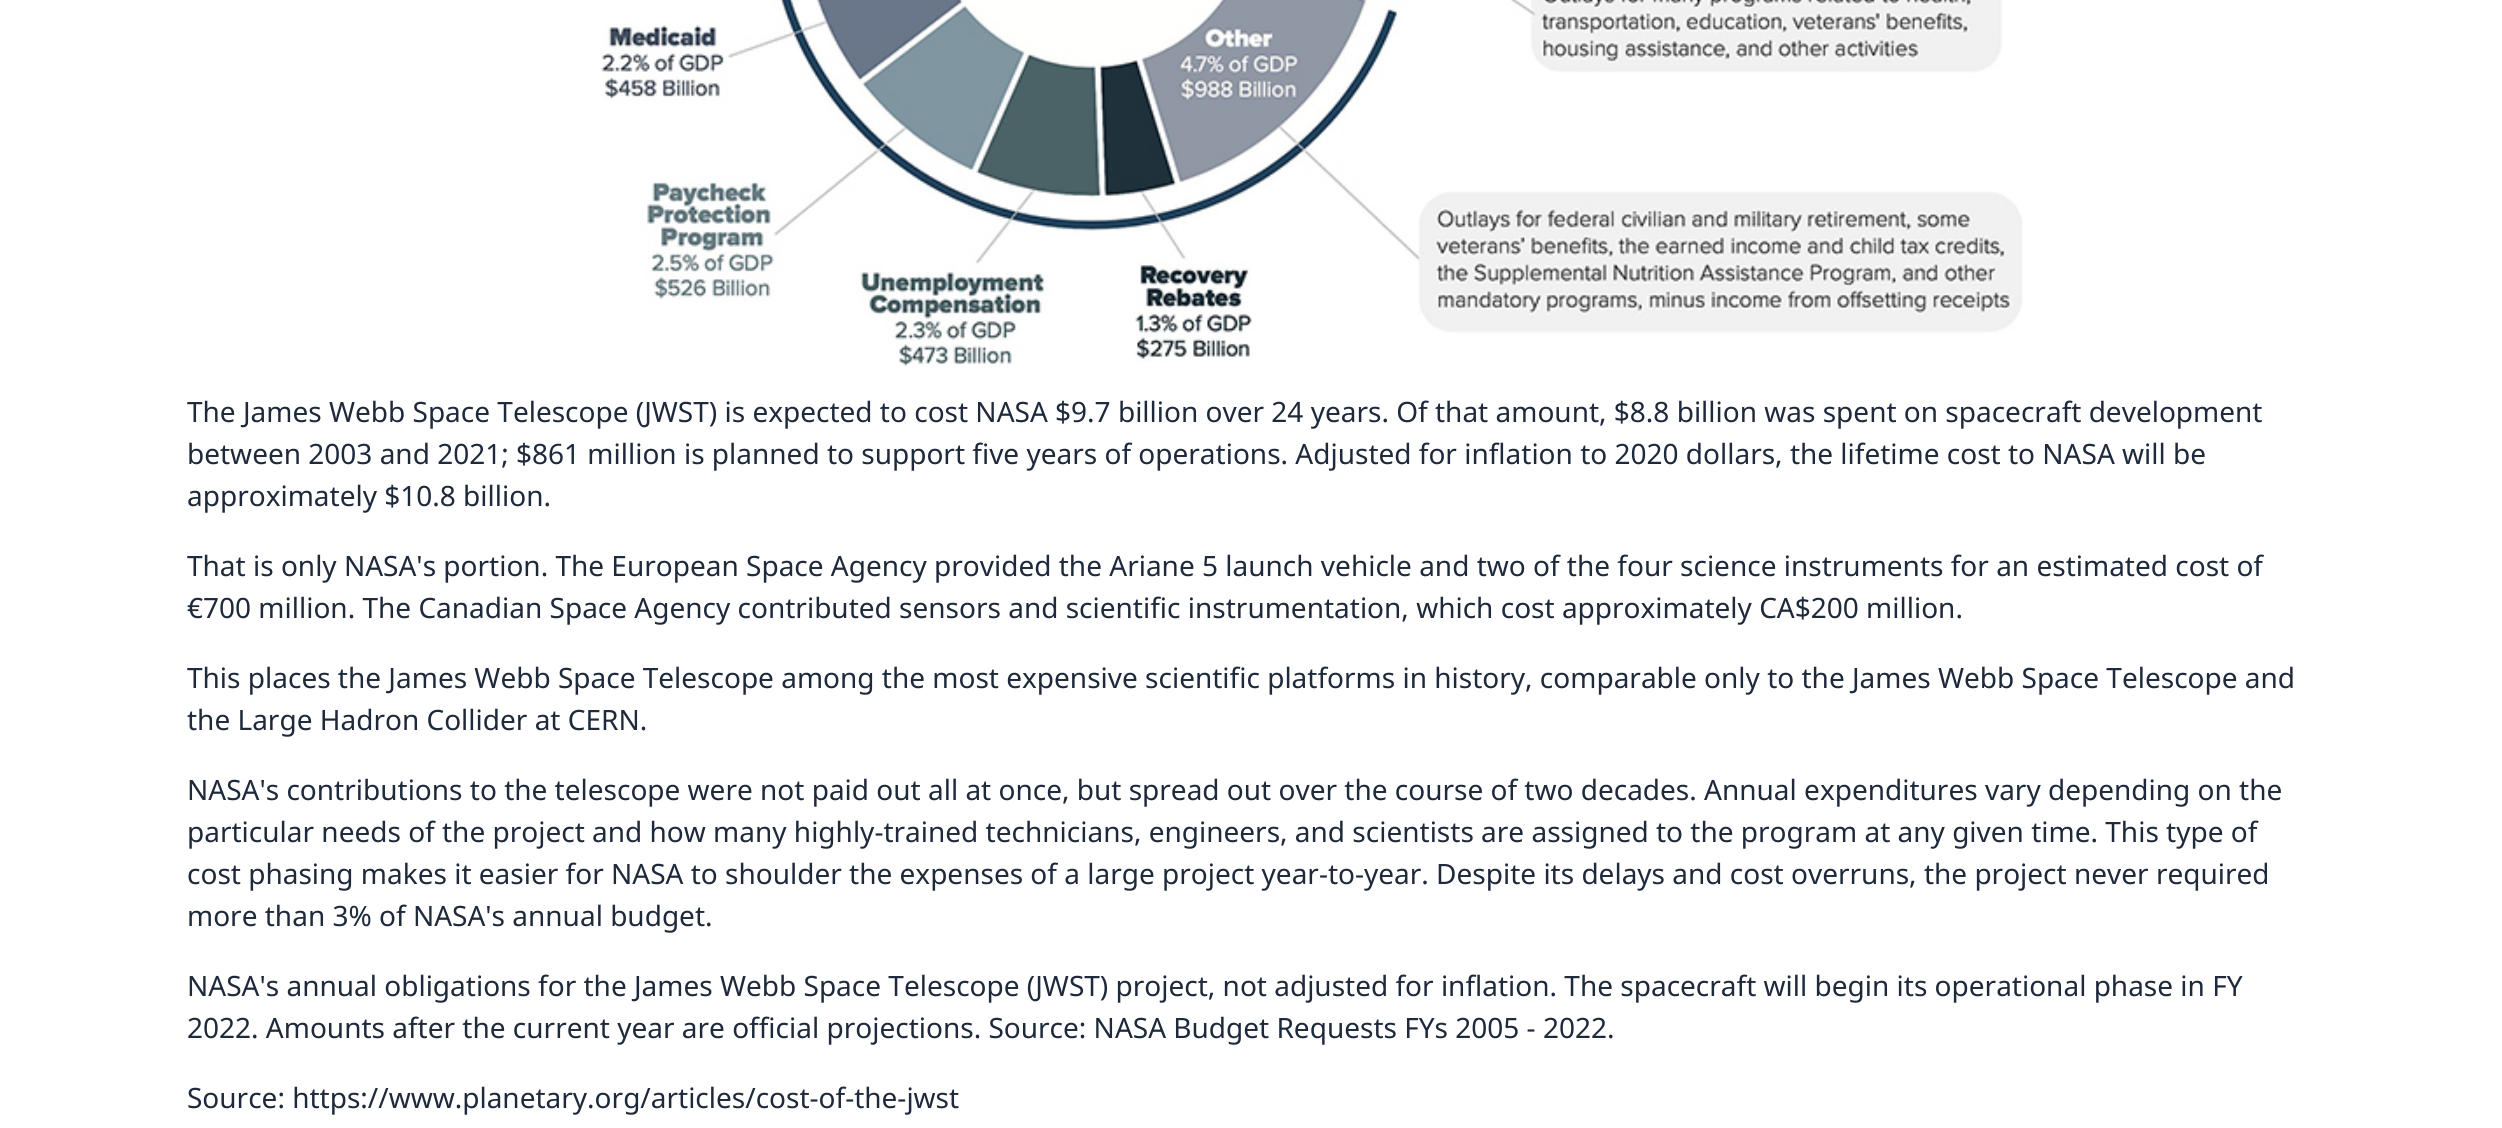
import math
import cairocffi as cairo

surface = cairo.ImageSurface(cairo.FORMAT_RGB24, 2502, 1128)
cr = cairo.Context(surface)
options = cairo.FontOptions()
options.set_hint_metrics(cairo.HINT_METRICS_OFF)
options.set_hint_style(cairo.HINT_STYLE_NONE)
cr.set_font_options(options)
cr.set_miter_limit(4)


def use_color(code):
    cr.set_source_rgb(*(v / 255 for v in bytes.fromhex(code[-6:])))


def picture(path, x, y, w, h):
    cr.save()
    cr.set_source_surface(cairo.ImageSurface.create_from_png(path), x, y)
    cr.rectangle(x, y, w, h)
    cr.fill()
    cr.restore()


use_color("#ffffff")
cr.paint()
picture("img1.png", 601, 0, 1422, 366)
cr.select_font_face("Noto Sans")
cr.set_font_size(28)
use_color("#1e293b")
cr.move_to(187, 422)
cr.show_text("The James Webb Space Telescope (JWST) is expected to cost NASA $9.7 billion over 24 years. Of that amount, $8.8 billion was spent on spacecraft development")
cr.move_to(187, 464)
cr.show_text("between 2003 and 2021; $861 million is planned to support five years of operations. Adjusted for inflation to 2020 dollars, the lifetime cost to NASA will be")
cr.move_to(187, 506)
cr.show_text("approximately $10.8 billion.")
cr.move_to(187, 576)
cr.show_text("That is only NASA's portion. The European Space Agency provided the Ariane 5 launch vehicle and two of the four science instruments for an estimated cost of")
cr.move_to(187, 618)
cr.show_text("€700 million. The Canadian Space Agency contributed sensors and scientific instrumentation, which cost approximately CA$200 million.")
cr.move_to(187, 688)
cr.show_text("This places the James Webb Space Telescope among the most expensive scientific platforms in history, comparable only to the James Webb Space Telescope and")
cr.move_to(187, 730)
cr.show_text("the Large Hadron Collider at CERN.")
cr.move_to(187, 800)
cr.show_text("NASA's contributions to the telescope were not paid out all at once, but spread out over the course of two decades. Annual expenditures vary depending on the")
cr.move_to(187, 842)
cr.show_text("particular needs of the project and how many highly-trained technicians, engineers, and scientists are assigned to the program at any given time. This type of")
cr.move_to(187, 884)
cr.show_text("cost phasing makes it easier for NASA to shoulder the expenses of a large project year-to-year. Despite its delays and cost overruns, the project never required")
cr.move_to(187, 926)
cr.show_text("more than 3% of NASA's annual budget.")
cr.move_to(187, 996)
cr.show_text("NASA's annual obligations for the James Webb Space Telescope (JWST) project, not adjusted for inflation. The spacecraft will begin its operational phase in FY")
cr.move_to(187, 1038)
cr.show_text("2022. Amounts after the current year are official projections. Source: NASA Budget Requests FYs 2005 - 2022.")
cr.move_to(187, 1108)
cr.show_text("Source: https://www.planetary.org/articles/cost-of-the-jwst")
surface.write_to_png("result.png")
